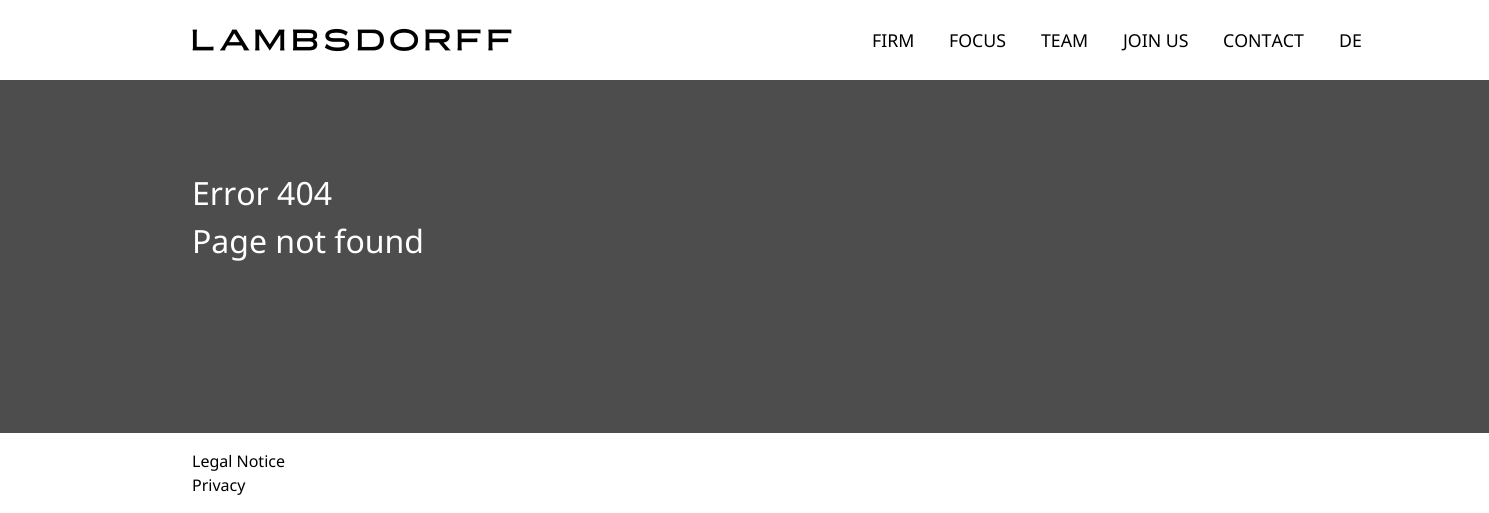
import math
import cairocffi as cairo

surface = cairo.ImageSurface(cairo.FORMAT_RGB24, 1489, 513)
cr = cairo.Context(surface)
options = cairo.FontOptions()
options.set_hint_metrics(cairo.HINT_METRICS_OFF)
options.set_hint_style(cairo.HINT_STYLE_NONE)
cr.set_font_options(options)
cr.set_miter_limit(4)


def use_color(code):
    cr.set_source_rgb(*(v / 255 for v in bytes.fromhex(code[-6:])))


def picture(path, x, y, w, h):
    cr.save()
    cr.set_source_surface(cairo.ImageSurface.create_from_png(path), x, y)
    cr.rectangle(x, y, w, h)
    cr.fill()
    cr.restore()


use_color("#ffffff")
cr.paint()
picture("img1.png", 192, 28, 320, 24)
cr.select_font_face("Noto Sans")
cr.set_font_size(17.75)
use_color("#000000")
cr.move_to(872, 47)
cr.show_text("FIRM")
cr.move_to(949, 47)
cr.show_text("FOCUS")
cr.move_to(1041, 47)
cr.show_text("TEAM")
cr.move_to(1123, 47)
cr.show_text("JOIN US")
cr.move_to(1223, 47)
cr.show_text("CONTACT")
cr.move_to(1339, 47)
cr.show_text("DE")
use_color("#4d4d4d")
cr.rectangle(0, 80, 1489, 353)
cr.fill()
cr.set_font_size(32)
use_color("#ffffff")
cr.move_to(192, 205)
cr.show_text("Error 404")
cr.move_to(192, 253)
cr.show_text("Page not found")
cr.set_font_size(16)
use_color("#000000")
cr.move_to(192, 467)
cr.show_text("Legal Notice")
cr.move_to(192, 491)
cr.show_text("Privacy")
surface.write_to_png("result.png")
